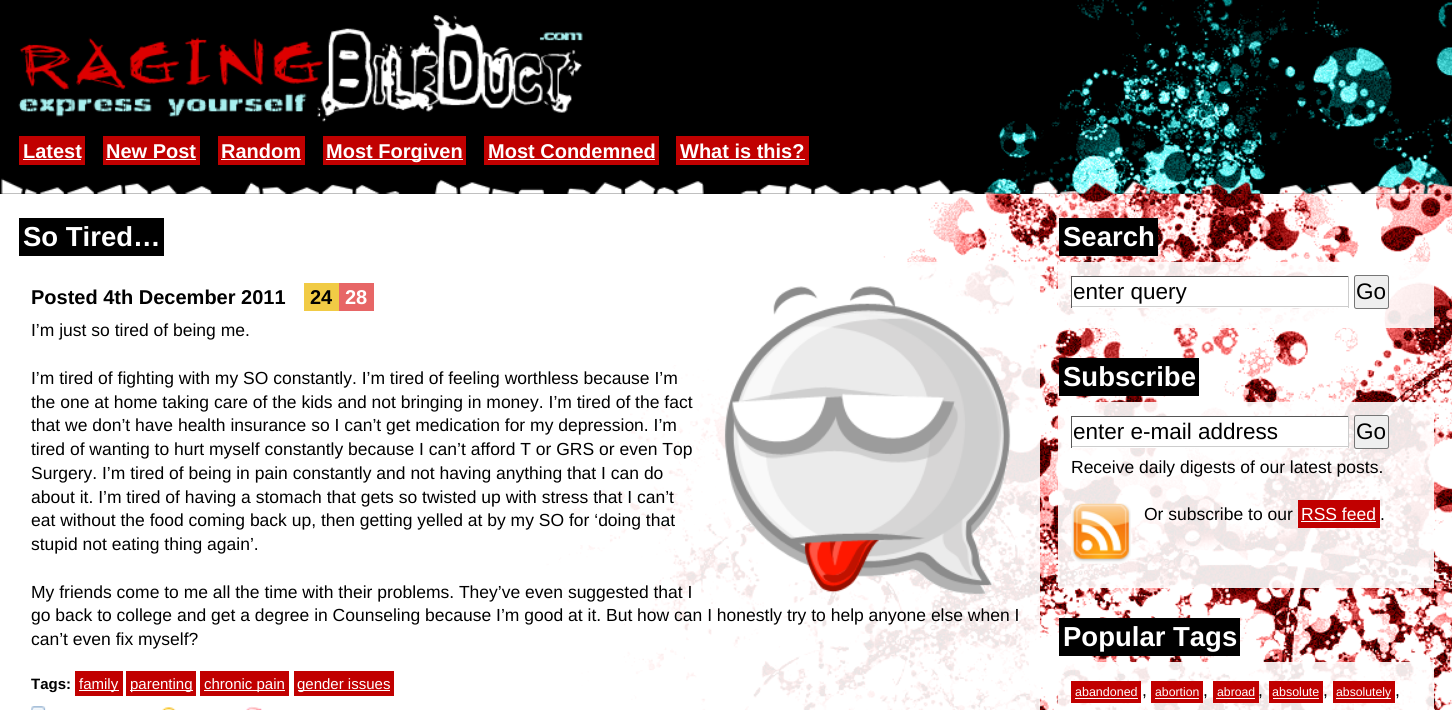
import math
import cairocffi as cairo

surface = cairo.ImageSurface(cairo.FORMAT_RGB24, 1452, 710)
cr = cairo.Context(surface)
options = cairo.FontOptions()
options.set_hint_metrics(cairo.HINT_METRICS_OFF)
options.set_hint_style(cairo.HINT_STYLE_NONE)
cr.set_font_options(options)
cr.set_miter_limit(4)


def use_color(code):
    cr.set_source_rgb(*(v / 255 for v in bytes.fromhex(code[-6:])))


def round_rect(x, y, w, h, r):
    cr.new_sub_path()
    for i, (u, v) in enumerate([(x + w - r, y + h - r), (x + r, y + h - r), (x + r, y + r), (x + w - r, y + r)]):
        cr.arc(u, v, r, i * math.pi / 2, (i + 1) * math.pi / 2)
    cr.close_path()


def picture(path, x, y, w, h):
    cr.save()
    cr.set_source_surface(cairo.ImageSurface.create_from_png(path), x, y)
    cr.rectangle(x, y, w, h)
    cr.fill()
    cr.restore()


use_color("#000000")
cr.paint()
picture("img1.png", 984, 0, 468, 194)
picture("img2.png", 1, 178, 975, 16)
picture("img3.png", 18, 15, 565, 107)
use_color("#c10000")
cr.rectangle(19, 136, 66, 29)
cr.fill()
cr.select_font_face("Liberation Sans", cairo.FONT_SLANT_NORMAL, cairo.FONT_WEIGHT_BOLD)
cr.set_font_size(20)
use_color("#ffffff")
cr.move_to(23, 158)
cr.show_text("Latest")
cr.rectangle(23, 159, 58, 1)
cr.fill()
use_color("#c10000")
cr.rectangle(103, 136, 97, 29)
cr.fill()
use_color("#ffffff")
cr.move_to(106, 158)
cr.show_text("New Post")
cr.rectangle(106, 159, 90, 1)
cr.fill()
use_color("#c10000")
cr.rectangle(218, 136, 87, 29)
cr.fill()
use_color("#ffffff")
cr.move_to(221, 158)
cr.show_text("Random")
cr.rectangle(221, 159, 80, 1)
cr.fill()
use_color("#c10000")
cr.rectangle(323, 136, 143, 29)
cr.fill()
use_color("#ffffff")
cr.rectangle(326, 159, 137, 1)
cr.fill()
cr.move_to(326, 158)
cr.show_text("Most Forgiven")
use_color("#c10000")
cr.rectangle(484, 136, 175, 29)
cr.fill()
use_color("#ffffff")
cr.move_to(488, 158)
cr.show_text("Most Condemned")
cr.rectangle(488, 159, 167, 1)
cr.fill()
use_color("#c10000")
cr.rectangle(676, 136, 133, 29)
cr.fill()
use_color("#ffffff")
cr.move_to(680, 158)
cr.show_text("What is this?")
cr.rectangle(680, 159, 125, 1)
cr.fill()
cr.rectangle(0, 194, 1452, 516)
cr.fill()
picture("img4.png", 541, 193, 911, 517)
use_color("#000000")
cr.rectangle(19, 218, 145, 38)
cr.fill()
cr.set_font_size(27.5)
use_color("#ffffff")
cr.move_to(23, 246)
cr.show_text("So Tired…")
cr.set_source_rgba(1, 1, 1, 0.9)
cr.rectangle(541, 262, 499, 448)
cr.fill()
cr.set_font_size(20)
use_color("#000000")
cr.move_to(31, 304)
cr.show_text("Posted 4th December 2011")
use_color("#f1cb45")
cr.rectangle(304, 283, 35, 28)
cr.fill()
use_color("#000000")
cr.move_to(310, 304)
cr.show_text("24")
use_color("#e76666")
cr.rectangle(339, 283, 35, 28)
cr.fill()
use_color("#ffffff")
cr.move_to(345, 304)
cr.show_text("28")
picture("img5.png", 724, 286, 287, 308)
cr.select_font_face("Liberation Sans")
cr.set_font_size(17.5)
use_color("#000000")
cr.move_to(31, 336)
cr.show_text("I’m just so tired of being me.")
cr.move_to(31, 384)
cr.show_text("I’m tired of fighting with my SO constantly. I’m tired of feeling worthless because I’m")
cr.move_to(31, 408)
cr.show_text("the one at home taking care of the kids and not bringing in money. I’m tired of the fact")
cr.move_to(31, 431)
cr.show_text("that we don’t have health insurance so I can’t get medication for my depression. I’m")
cr.move_to(31, 455)
cr.show_text("tired of wanting to hurt myself constantly because I can’t afford T or GRS or even Top")
cr.move_to(31, 479)
cr.show_text("Surgery. I’m tired of being in pain constantly and not having anything that I can do")
cr.move_to(31, 503)
cr.show_text("about it. I’m tired of having a stomach that gets so twisted up with stress that I can’t")
cr.move_to(31, 526)
cr.show_text("eat without the food coming back up, then getting yelled at by my SO for ‘doing that")
cr.move_to(31, 550)
cr.show_text("stupid not eating thing again’.")
cr.move_to(31, 598)
cr.show_text("My friends come to me all the time with their problems. They’ve even suggested that I")
cr.move_to(31, 621)
cr.show_text("go back to college and get a degree in Counseling because I’m good at it. But how can I honestly try to help anyone else when I")
cr.move_to(31, 645)
cr.show_text("can’t even fix myself?")
cr.select_font_face("Liberation Sans", cairo.FONT_SLANT_NORMAL, cairo.FONT_WEIGHT_BOLD)
cr.set_font_size(15)
cr.move_to(31, 689)
cr.show_text("Tags:")
use_color("#c10000")
cr.rectangle(75, 671, 48, 25)
cr.fill()
use_color("#ffffff")
cr.rectangle(79, 690, 40, 1)
cr.fill()
cr.select_font_face("Liberation Sans")
cr.move_to(79, 689)
cr.show_text("family")
use_color("#c10000")
cr.rectangle(126, 671, 70, 25)
cr.fill()
use_color("#ffffff")
cr.rectangle(130, 690, 63, 1)
cr.fill()
cr.move_to(130, 689)
cr.show_text("parenting")
use_color("#c10000")
cr.rectangle(200, 671, 89, 25)
cr.fill()
use_color("#ffffff")
cr.rectangle(204, 690, 81, 1)
cr.fill()
cr.move_to(204, 689)
cr.show_text("chronic pain")
use_color("#c10000")
cr.rectangle(294, 671, 100, 25)
cr.fill()
use_color("#ffffff")
cr.rectangle(298, 690, 92, 1)
cr.fill()
cr.move_to(297, 689)
cr.show_text("gender issues")
picture("img6.png", 31, 706, 15, 4)
picture("img7.png", 162, 707, 14, 3)
picture("img8.png", 246, 706, 16, 4)
use_color("#000000")
cr.rectangle(1059, 218, 99, 38)
cr.fill()
cr.select_font_face("Liberation Sans", cairo.FONT_SLANT_NORMAL, cairo.FONT_WEIGHT_BOLD)
cr.set_font_size(27.5)
use_color("#ffffff")
cr.move_to(1063, 246)
cr.show_text("Search")
cr.set_source_rgba(1, 1, 1, 0.9)
cr.rectangle(1058, 262, 376, 66)
cr.fill()
use_color("#ffffff")
cr.rectangle(1072, 277, 273, 31)
cr.fill()
use_color("#565656")
cr.rectangle(1071, 276, 278, 1)
cr.fill()
use_color("#cdcdcd")
cr.rectangle(1348, 276, 1, 32)
cr.fill()
cr.rectangle(1071, 306, 278, 1)
cr.fill()
use_color("#565656")
cr.rectangle(1071, 276, 1, 32)
cr.fill()
cr.select_font_face("Liberation Sans")
cr.set_font_size(22.5)
use_color("#000000")
cr.move_to(1073, 299)
cr.show_text("enter query")
use_color("#efefef")
round_rect(1354.5, 275.5, 34, 33, 2)
cr.fill_preserve()
use_color("#767676")
cr.set_line_width(1)
cr.stroke()
use_color("#000000")
cr.move_to(1356, 299)
cr.show_text("Go")
cr.rectangle(1059, 358, 140, 38)
cr.fill()
cr.select_font_face("Liberation Sans", cairo.FONT_SLANT_NORMAL, cairo.FONT_WEIGHT_BOLD)
cr.set_font_size(27.5)
use_color("#ffffff")
cr.move_to(1063, 386)
cr.show_text("Subscribe")
cr.set_source_rgba(1, 1, 1, 0.9)
cr.rectangle(1058, 402, 376, 186)
cr.fill()
use_color("#ffffff")
cr.rectangle(1072, 417, 276, 31)
cr.fill()
use_color("#565656")
cr.rectangle(1071, 416, 278, 1)
cr.fill()
use_color("#cdcdcd")
cr.rectangle(1348, 416, 1, 32)
cr.fill()
cr.rectangle(1071, 446, 278, 1)
cr.fill()
use_color("#565656")
cr.rectangle(1071, 416, 1, 32)
cr.fill()
cr.select_font_face("Liberation Sans")
cr.set_font_size(22.5)
use_color("#000000")
cr.move_to(1073, 439)
cr.show_text("enter e-mail address")
use_color("#efefef")
round_rect(1354.5, 415.5, 34, 33, 2)
cr.fill_preserve()
use_color("#767676")
cr.stroke()
use_color("#000000")
cr.move_to(1356, 439)
cr.show_text("Go")
cr.set_font_size(17.5)
cr.move_to(1071, 473)
cr.show_text("Receive daily digests of our latest posts.")
picture("img9.png", 1071, 503, 60, 61)
cr.move_to(1144, 520)
cr.show_text("Or subscribe to our")
use_color("#c10000")
cr.rectangle(1298, 500, 82, 28)
cr.fill()
use_color("#ffffff")
cr.move_to(1301, 520)
cr.show_text("RSS feed")
cr.rectangle(1301, 521, 75, 1)
cr.fill()
use_color("#000000")
cr.move_to(1380, 520)
cr.show_text(".")
cr.rectangle(1059, 618, 181, 38)
cr.fill()
cr.select_font_face("Liberation Sans", cairo.FONT_SLANT_NORMAL, cairo.FONT_WEIGHT_BOLD)
cr.set_font_size(27.5)
use_color("#ffffff")
cr.move_to(1063, 646)
cr.show_text("Popular Tags")
cr.set_source_rgba(1, 1, 1, 0.9)
cr.rectangle(1058, 662, 376, 48)
cr.fill()
use_color("#c10000")
cr.rectangle(1071, 681, 70, 22)
cr.fill()
cr.select_font_face("Liberation Sans")
cr.set_font_size(12.5)
use_color("#ffffff")
cr.move_to(1075, 696)
cr.show_text("abandoned")
cr.rectangle(1075, 698, 63, 1)
cr.fill()
cr.set_font_size(17.5)
use_color("#000000")
cr.move_to(1142, 696)
cr.show_text(",")
use_color("#c10000")
cr.rectangle(1151, 681, 52, 22)
cr.fill()
cr.set_font_size(12.25)
use_color("#ffffff")
cr.move_to(1155, 696)
cr.show_text("abortion")
cr.rectangle(1155, 698, 44, 1)
cr.fill()
cr.set_font_size(17.5)
use_color("#000000")
cr.move_to(1203, 696)
cr.show_text(",")
use_color("#c10000")
cr.rectangle(1213, 681, 46, 22)
cr.fill()
cr.set_font_size(12.25)
use_color("#ffffff")
cr.move_to(1217, 696)
cr.show_text("abroad")
cr.rectangle(1216, 698, 39, 1)
cr.fill()
cr.set_font_size(17.5)
use_color("#000000")
cr.move_to(1258, 696)
cr.show_text(",")
use_color("#c10000")
cr.rectangle(1269, 681, 54, 22)
cr.fill()
cr.set_font_size(12.5)
use_color("#ffffff")
cr.move_to(1272, 696)
cr.show_text("absolute")
cr.rectangle(1273, 698, 46, 1)
cr.fill()
cr.set_font_size(17.5)
use_color("#000000")
cr.move_to(1323, 696)
cr.show_text(",")
use_color("#c10000")
cr.rectangle(1333, 681, 62, 22)
cr.fill()
use_color("#ffffff")
cr.rectangle(1336, 698, 55, 1)
cr.fill()
cr.set_font_size(12.25)
cr.move_to(1336, 696)
cr.show_text("absolutely")
cr.set_font_size(17.5)
use_color("#000000")
cr.move_to(1395, 696)
cr.show_text(",")
surface.write_to_png("result.png")
